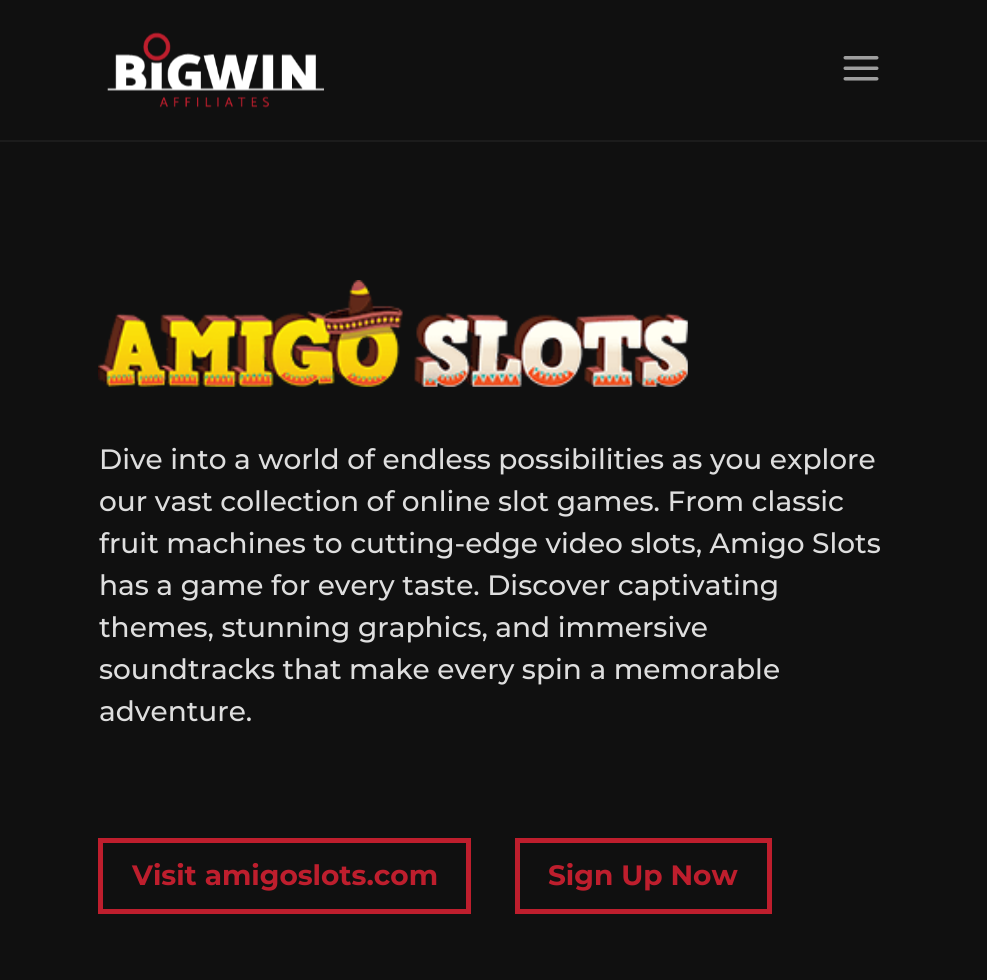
import math
import cairocffi as cairo

surface = cairo.ImageSurface(cairo.FORMAT_RGB24, 987, 980)
cr = cairo.Context(surface)
options = cairo.FontOptions()
options.set_hint_metrics(cairo.HINT_METRICS_OFF)
options.set_hint_style(cairo.HINT_STYLE_NONE)
cr.set_font_options(options)
cr.set_miter_limit(4)


def use_color(code):
    cr.set_source_rgb(*(v / 255 for v in bytes.fromhex(code[-6:])))


def picture(path, x, y, w, h):
    cr.save()
    cr.set_source_surface(cairo.ImageSurface.create_from_png(path), x, y)
    cr.rectangle(x, y, w, h)
    cr.fill()
    cr.restore()


use_color("#101010")
cr.paint()
use_color("#1c1c1c")
cr.rectangle(0, 140, 987, 2)
cr.fill()
picture("img1.png", 107, 32, 217, 76)
picture("img2.png", 843, 56, 36, 25)
picture("img3.png", 98, 280, 590, 107)
cr.select_font_face("Montserrat Medium")
cr.set_font_size(28)
use_color("#dedede")
cr.move_to(99, 469)
cr.show_text("Dive into a world of endless possibilities as you explore")
cr.move_to(99, 511)
cr.show_text("our vast collection of online slot games. From classic")
cr.move_to(99, 553)
cr.show_text("fruit machines to cutting-edge video slots, Amigo Slots")
cr.move_to(99, 595)
cr.show_text("has a game for every taste. Discover captivating")
cr.move_to(99, 637)
cr.show_text("themes, stunning graphics, and immersive")
cr.move_to(99, 679)
cr.show_text("soundtracks that make every spin a memorable")
cr.move_to(99, 721)
cr.show_text("adventure.")
cr.rectangle(100.5, 840.5, 368, 71)
use_color("#be1e2d")
cr.set_line_width(5)
cr.stroke()
cr.select_font_face("Montserrat", cairo.FONT_SLANT_NORMAL, cairo.FONT_WEIGHT_BOLD)
cr.move_to(132, 885)
cr.show_text("Visit amigoslots.com")
cr.rectangle(517.5, 840.5, 252, 71)
cr.stroke()
cr.move_to(548, 885)
cr.show_text("Sign Up Now")
surface.write_to_png("result.png")
